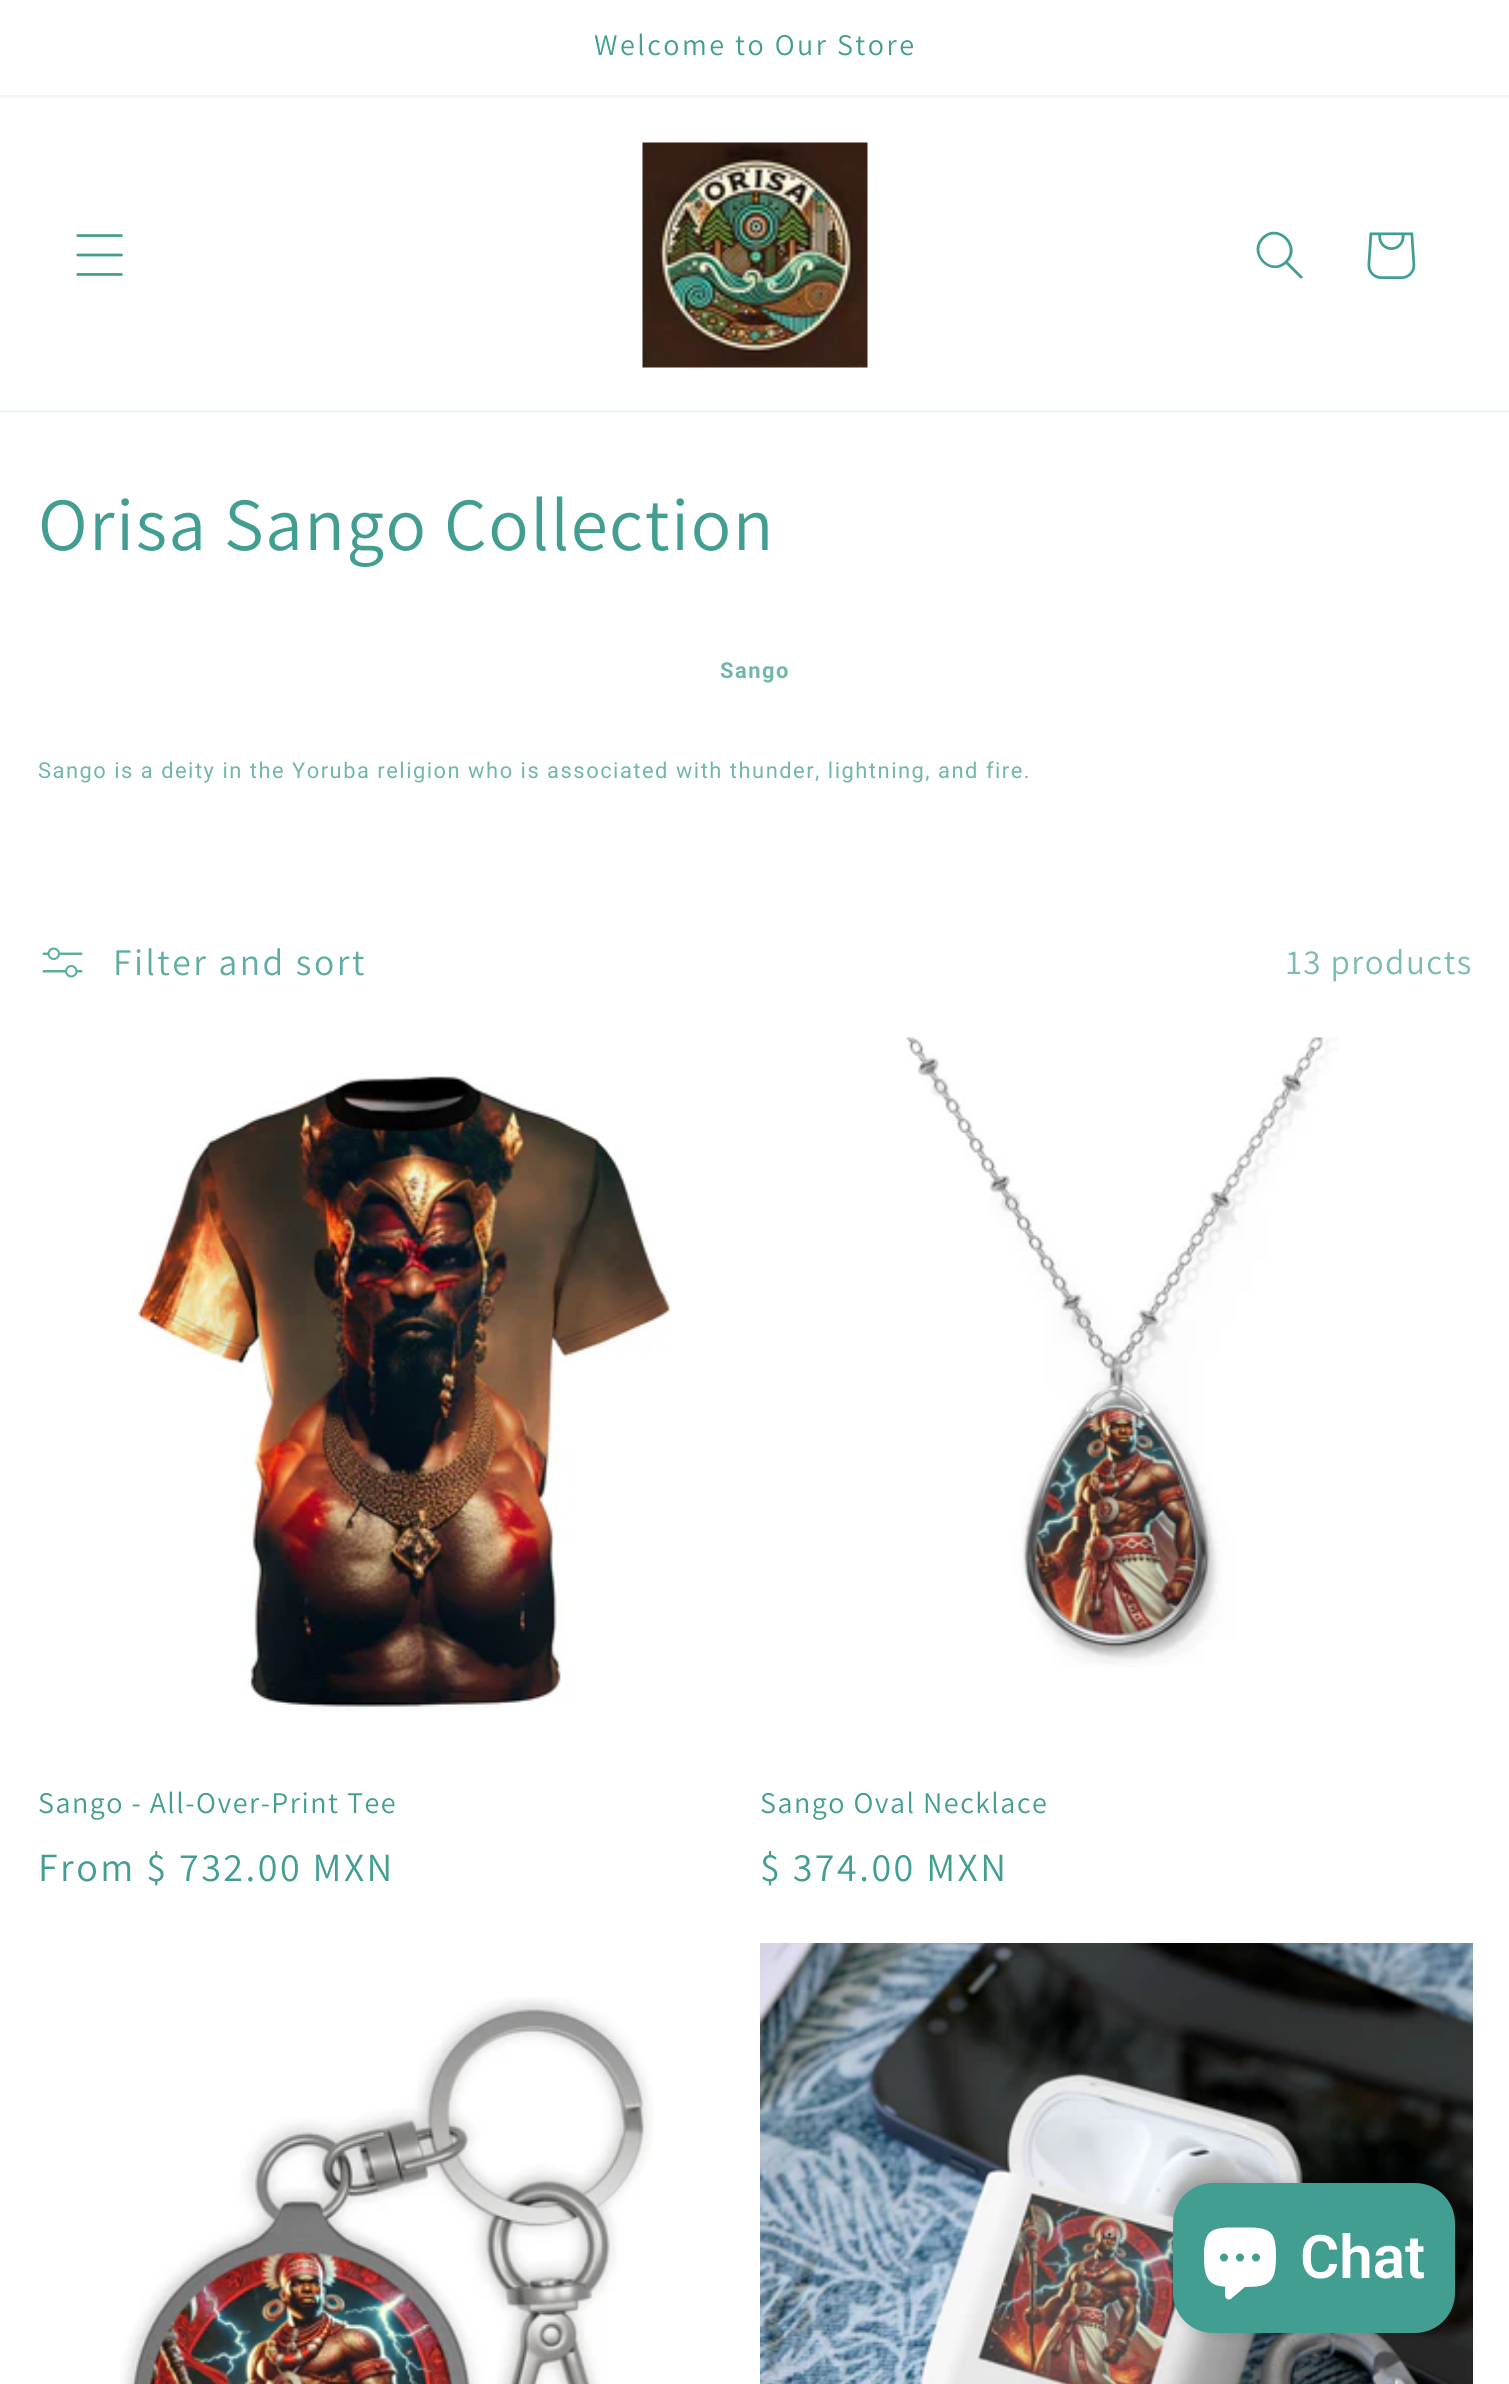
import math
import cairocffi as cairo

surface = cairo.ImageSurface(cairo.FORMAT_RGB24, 1509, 2384)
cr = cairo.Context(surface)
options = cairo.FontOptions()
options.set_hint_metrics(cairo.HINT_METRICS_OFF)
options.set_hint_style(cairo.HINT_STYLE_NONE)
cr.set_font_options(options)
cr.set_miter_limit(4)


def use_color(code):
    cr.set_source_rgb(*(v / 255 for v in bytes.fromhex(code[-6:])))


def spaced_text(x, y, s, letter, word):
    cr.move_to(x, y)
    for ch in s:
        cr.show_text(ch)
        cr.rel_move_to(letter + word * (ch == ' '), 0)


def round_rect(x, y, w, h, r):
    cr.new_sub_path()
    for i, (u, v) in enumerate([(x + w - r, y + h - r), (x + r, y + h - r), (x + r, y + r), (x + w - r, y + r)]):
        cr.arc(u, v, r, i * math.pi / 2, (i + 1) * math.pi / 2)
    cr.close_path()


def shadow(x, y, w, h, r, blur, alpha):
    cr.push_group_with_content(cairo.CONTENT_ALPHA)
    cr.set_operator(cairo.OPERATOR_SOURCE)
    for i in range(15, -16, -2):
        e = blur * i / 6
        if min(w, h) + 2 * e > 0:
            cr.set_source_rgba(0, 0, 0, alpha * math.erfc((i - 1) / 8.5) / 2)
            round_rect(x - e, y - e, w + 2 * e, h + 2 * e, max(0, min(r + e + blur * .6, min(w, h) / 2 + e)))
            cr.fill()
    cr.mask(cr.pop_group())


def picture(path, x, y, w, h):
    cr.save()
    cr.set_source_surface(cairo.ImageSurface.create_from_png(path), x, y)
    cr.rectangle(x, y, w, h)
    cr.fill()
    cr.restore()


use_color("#ffffff")
cr.paint()
use_color("#f0f7f6")
cr.rectangle(0, 95, 1509, 3)
cr.fill()
cr.select_font_face("Assistant")
cr.set_font_size(30)
use_color("#419e91")
spaced_text(594, 55, "Welcome to Our Store", 2.5, 0)
use_color("#f0f7f6")
cr.rectangle(0, 410, 1509, 3)
cr.fill()
picture("img1.png", 76, 234, 47, 42)
picture("img2.png", 642, 142, 226, 226)
use_color("#419e91")
cr.set_fill_rule(cairo.FILL_RULE_EVEN_ODD)
cr.new_path()
cr.move_to(1285, 261)
cr.curve_to(1271, 275, 1250, 253, 1264, 239)
cr.curve_to(1278, 225, 1299, 247, 1285, 261)
cr.move_to(1286, 264)
cr.curve_to(1269, 278, 1246, 253, 1262, 237)
cr.curve_to(1278, 221, 1303, 245, 1288, 262)
cr.line_to(1303, 277)
cr.curve_to(1303, 278, 1301, 279, 1300, 278)
cr.close_path()
cr.fill()
picture("img3.png", 1367, 232, 49, 48)
cr.set_font_size(75)
spaced_text(38, 550, "Orisa Sango Collection", 1.5, 0)
cr.select_font_face("Roboto", cairo.FONT_SLANT_NORMAL, cairo.FONT_WEIGHT_BOLD)
cr.set_font_size(21.9)
use_color("#71b6ad")
spaced_text(720, 678, "Sango", 1.5, 0)
cr.select_font_face("Roboto")
spaced_text(38, 778, "Sango is a deity in the Yoruba religion who is associated with thunder, lightning, and fire.", 1.5, 0)
picture("img4.png", 42, 947, 41, 31)
cr.select_font_face("Assistant")
cr.set_font_size(37.5)
use_color("#5eada2")
spaced_text(113, 975, "Filter and sort", 2.5, 0)
cr.set_font_size(35)
use_color("#7abbb2")
spaced_text(1286, 974, "13 products", 1.5, 0)
picture("img5.png", 132, 1076, 541, 635)
cr.set_font_size(30)
use_color("#419e91")
spaced_text(38, 1813, "Sango - All-Over-Print Tee", 1.5, 0)
cr.set_font_size(40)
spaced_text(38, 1881, "From $ 732.00 MXN", 2.5, 0)
picture("img6.png", 906, 1037, 432, 631)
cr.set_font_size(30)
spaced_text(760, 1813, "Sango Oval Necklace", 1.5, 0)
cr.set_font_size(40)
spaced_text(760, 1881, "$ 374.00 MXN", 2.5, 0)
picture("img7.png", 120, 1997, 534, 387)
picture("img8.png", 760, 1943, 713, 441)
use_color("#000000")
shadow(1173, 2183, 282, 150, 40, 6, 0.15)
use_color("#419e91")
round_rect(1173, 2183, 282, 150, 40)
cr.fill()
picture("img9.png", 1204, 2227, 72, 73)
cr.select_font_face("Roboto SemiBold")
cr.set_font_size(60)
use_color("#ffffff")
cr.move_to(1300, 2278)
cr.show_text("Chat")
surface.write_to_png("result.png")
